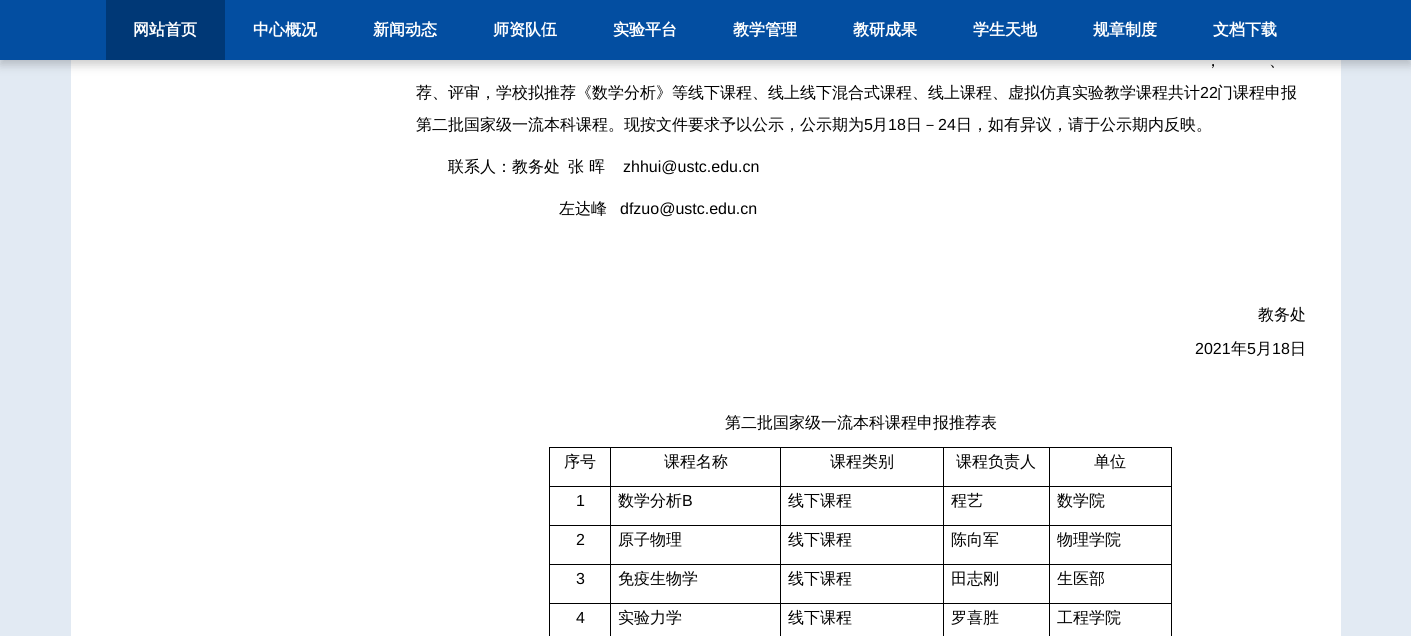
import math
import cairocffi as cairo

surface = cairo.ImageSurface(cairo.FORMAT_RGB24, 1411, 636)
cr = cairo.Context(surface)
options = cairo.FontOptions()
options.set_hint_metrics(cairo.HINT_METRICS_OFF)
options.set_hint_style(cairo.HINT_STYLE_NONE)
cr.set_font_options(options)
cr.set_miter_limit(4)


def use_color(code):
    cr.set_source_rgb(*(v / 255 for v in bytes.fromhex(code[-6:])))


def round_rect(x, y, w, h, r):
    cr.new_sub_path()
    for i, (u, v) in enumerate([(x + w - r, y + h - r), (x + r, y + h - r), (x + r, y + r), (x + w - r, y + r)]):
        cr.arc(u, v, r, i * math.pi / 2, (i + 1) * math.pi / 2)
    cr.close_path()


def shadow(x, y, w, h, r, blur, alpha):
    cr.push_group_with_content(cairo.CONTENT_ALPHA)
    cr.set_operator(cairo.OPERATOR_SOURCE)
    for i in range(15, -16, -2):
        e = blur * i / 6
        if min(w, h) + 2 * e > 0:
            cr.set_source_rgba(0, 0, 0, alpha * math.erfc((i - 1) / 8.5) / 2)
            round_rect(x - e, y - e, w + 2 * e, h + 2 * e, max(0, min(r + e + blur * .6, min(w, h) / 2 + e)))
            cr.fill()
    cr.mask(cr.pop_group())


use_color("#e2eaf3")
cr.paint()
use_color("#ffffff")
cr.rectangle(71, 60, 1270, 576)
cr.fill()
use_color("#000000")
shadow(0, 5, 1411, 60, 0, 5, 0.2)
use_color("#034ea1")
cr.rectangle(0, 0, 1411, 60)
cr.fill()
use_color("#003876")
cr.rectangle(106, 0, 119, 60)
cr.fill()
cr.select_font_face("WenQuanYi Zen Hei", cairo.FONT_SLANT_NORMAL, cairo.FONT_WEIGHT_BOLD)
cr.set_font_size(16)
use_color("#ffffff")
cr.move_to(133, 35)
cr.show_text("网站首页")
cr.move_to(253, 35)
cr.show_text("中心概况")
cr.move_to(373, 35)
cr.show_text("新闻动态")
cr.move_to(493, 35)
cr.show_text("师资队伍")
cr.move_to(613, 35)
cr.show_text("实验平台")
cr.move_to(733, 35)
cr.show_text("教学管理")
cr.move_to(853, 35)
cr.show_text("教研成果")
cr.move_to(973, 35)
cr.show_text("学生天地")
cr.move_to(1093, 35)
cr.show_text("规章制度")
cr.move_to(1213, 35)
cr.show_text("文档下载")
cr.select_font_face("WenQuanYi Zen Hei Medium")
use_color("#000000")
cr.move_to(1205, 66)
cr.show_text("，")
cr.move_to(1269, 66)
cr.show_text("、")
cr.move_to(416, 98)
cr.show_text("荐、评审，学校拟推荐《数学分析》等线下课程、线上线下混合式课程、线上课程、虚拟仿真实验教学课程共计")
cr.select_font_face("Liberation Sans")
cr.move_to(1200, 98)
cr.show_text("22")
cr.select_font_face("WenQuanYi Zen Hei Medium")
cr.move_to(1217, 98)
cr.show_text("门课程申报")
cr.move_to(416, 130)
cr.show_text("第二批国家级一流本科课程。现按文件要求予以公示，公示期为")
cr.select_font_face("Liberation Sans")
cr.move_to(864, 130)
cr.show_text("5")
cr.select_font_face("WenQuanYi Zen Hei Medium")
cr.move_to(872, 130)
cr.show_text("月")
cr.select_font_face("Liberation Sans")
cr.move_to(888, 130)
cr.show_text("18")
cr.select_font_face("WenQuanYi Zen Hei Medium")
cr.move_to(906, 130)
cr.show_text("日－")
cr.select_font_face("Liberation Sans")
cr.move_to(938, 130)
cr.show_text("24")
cr.select_font_face("WenQuanYi Zen Hei Medium")
cr.move_to(956, 130)
cr.show_text("日，如有异议，请于公示期内反映。")
cr.move_to(448, 172)
cr.show_text("联系人：教务处")
cr.move_to(568, 172)
cr.show_text("张")
cr.move_to(589, 172)
cr.show_text("晖")
cr.select_font_face("Liberation Sans")
cr.move_to(623, 172)
cr.show_text("zhhui@ustc.edu.cn")
cr.select_font_face("WenQuanYi Zen Hei Medium")
cr.move_to(559, 214)
cr.show_text("左达峰")
cr.select_font_face("Liberation Sans")
cr.move_to(620, 214)
cr.show_text("dfzuo@ustc.edu.cn")
cr.select_font_face("WenQuanYi Zen Hei Medium")
cr.move_to(1258, 320)
cr.show_text("教务处")
cr.select_font_face("Liberation Sans")
cr.move_to(1195, 354)
cr.show_text("2021")
cr.select_font_face("WenQuanYi Zen Hei Medium")
cr.move_to(1231, 354)
cr.show_text("年")
cr.select_font_face("Liberation Sans")
cr.move_to(1247, 354)
cr.show_text("5")
cr.select_font_face("WenQuanYi Zen Hei Medium")
cr.move_to(1256, 354)
cr.show_text("月")
cr.select_font_face("Liberation Sans")
cr.move_to(1272, 354)
cr.show_text("18")
cr.select_font_face("WenQuanYi Zen Hei Medium")
cr.move_to(1290, 354)
cr.show_text("日")
cr.move_to(725, 428)
cr.show_text("第二批国家级一流本科课程申报推荐表")
cr.rectangle(549, 447, 623, 1)
cr.fill()
cr.rectangle(1171, 486, 1, 150)
cr.fill()
cr.rectangle(1171, 447, 1, 40)
cr.fill()
cr.rectangle(1049, 603, 1, 33)
cr.fill()
cr.rectangle(1049, 603, 123, 1)
cr.fill()
cr.rectangle(1049, 564, 1, 40)
cr.fill()
cr.rectangle(1049, 564, 123, 1)
cr.fill()
cr.rectangle(1049, 525, 1, 40)
cr.fill()
cr.rectangle(1049, 525, 123, 1)
cr.fill()
cr.rectangle(1049, 486, 1, 40)
cr.fill()
cr.rectangle(1049, 486, 123, 1)
cr.fill()
cr.rectangle(1049, 447, 1, 40)
cr.fill()
cr.rectangle(943, 603, 1, 33)
cr.fill()
cr.rectangle(943, 603, 107, 1)
cr.fill()
cr.rectangle(943, 564, 1, 40)
cr.fill()
cr.rectangle(943, 564, 107, 1)
cr.fill()
cr.rectangle(943, 525, 1, 40)
cr.fill()
cr.rectangle(943, 525, 107, 1)
cr.fill()
cr.rectangle(943, 486, 1, 40)
cr.fill()
cr.rectangle(943, 486, 107, 1)
cr.fill()
cr.rectangle(943, 447, 1, 40)
cr.fill()
cr.rectangle(780, 603, 1, 33)
cr.fill()
cr.rectangle(780, 603, 164, 1)
cr.fill()
cr.rectangle(780, 564, 1, 40)
cr.fill()
cr.rectangle(780, 564, 164, 1)
cr.fill()
cr.rectangle(780, 525, 1, 40)
cr.fill()
cr.rectangle(780, 525, 164, 1)
cr.fill()
cr.rectangle(780, 486, 1, 40)
cr.fill()
cr.rectangle(780, 486, 164, 1)
cr.fill()
cr.rectangle(780, 447, 1, 40)
cr.fill()
cr.rectangle(610, 603, 1, 33)
cr.fill()
cr.rectangle(610, 603, 171, 1)
cr.fill()
cr.rectangle(610, 564, 1, 40)
cr.fill()
cr.rectangle(610, 564, 171, 1)
cr.fill()
cr.rectangle(610, 525, 1, 40)
cr.fill()
cr.rectangle(610, 525, 171, 1)
cr.fill()
cr.rectangle(610, 486, 1, 40)
cr.fill()
cr.rectangle(610, 486, 171, 1)
cr.fill()
cr.rectangle(610, 447, 1, 40)
cr.fill()
cr.rectangle(549, 603, 1, 33)
cr.fill()
cr.rectangle(549, 603, 62, 1)
cr.fill()
cr.rectangle(549, 564, 1, 40)
cr.fill()
cr.rectangle(549, 564, 62, 1)
cr.fill()
cr.rectangle(549, 525, 1, 40)
cr.fill()
cr.rectangle(549, 525, 62, 1)
cr.fill()
cr.rectangle(549, 486, 1, 40)
cr.fill()
cr.rectangle(549, 486, 62, 1)
cr.fill()
cr.rectangle(549, 447, 1, 40)
cr.fill()
cr.move_to(564, 467)
cr.show_text("序号")
cr.move_to(664, 467)
cr.show_text("课程名称")
cr.move_to(830, 467)
cr.show_text("课程类别")
cr.move_to(956, 467)
cr.show_text("课程负责人")
cr.move_to(1094, 467)
cr.show_text("单位")
cr.select_font_face("Liberation Sans")
cr.move_to(576, 506)
cr.show_text("1")
cr.select_font_face("WenQuanYi Zen Hei Medium")
cr.move_to(618, 506)
cr.show_text("数学分析")
cr.select_font_face("Liberation Sans")
cr.move_to(682, 506)
cr.show_text("B")
cr.select_font_face("WenQuanYi Zen Hei Medium")
cr.move_to(788, 506)
cr.show_text("线下课程")
cr.move_to(951, 506)
cr.show_text("程艺")
cr.move_to(1057, 506)
cr.show_text("数学院")
cr.select_font_face("Liberation Sans")
cr.move_to(576, 545)
cr.show_text("2")
cr.select_font_face("WenQuanYi Zen Hei Medium")
cr.move_to(618, 545)
cr.show_text("原子物理")
cr.move_to(788, 545)
cr.show_text("线下课程")
cr.move_to(951, 545)
cr.show_text("陈向军")
cr.move_to(1057, 545)
cr.show_text("物理学院")
cr.select_font_face("Liberation Sans")
cr.move_to(576, 584)
cr.show_text("3")
cr.select_font_face("WenQuanYi Zen Hei Medium")
cr.move_to(618, 584)
cr.show_text("免疫生物学")
cr.move_to(788, 584)
cr.show_text("线下课程")
cr.move_to(951, 584)
cr.show_text("田志刚")
cr.move_to(1057, 584)
cr.show_text("生医部")
cr.select_font_face("Liberation Sans")
cr.move_to(576, 623)
cr.show_text("4")
cr.select_font_face("WenQuanYi Zen Hei Medium")
cr.move_to(618, 623)
cr.show_text("实验力学")
cr.move_to(788, 623)
cr.show_text("线下课程")
cr.move_to(951, 623)
cr.show_text("罗喜胜")
cr.move_to(1057, 623)
cr.show_text("工程学院")
surface.write_to_png("result.png")
